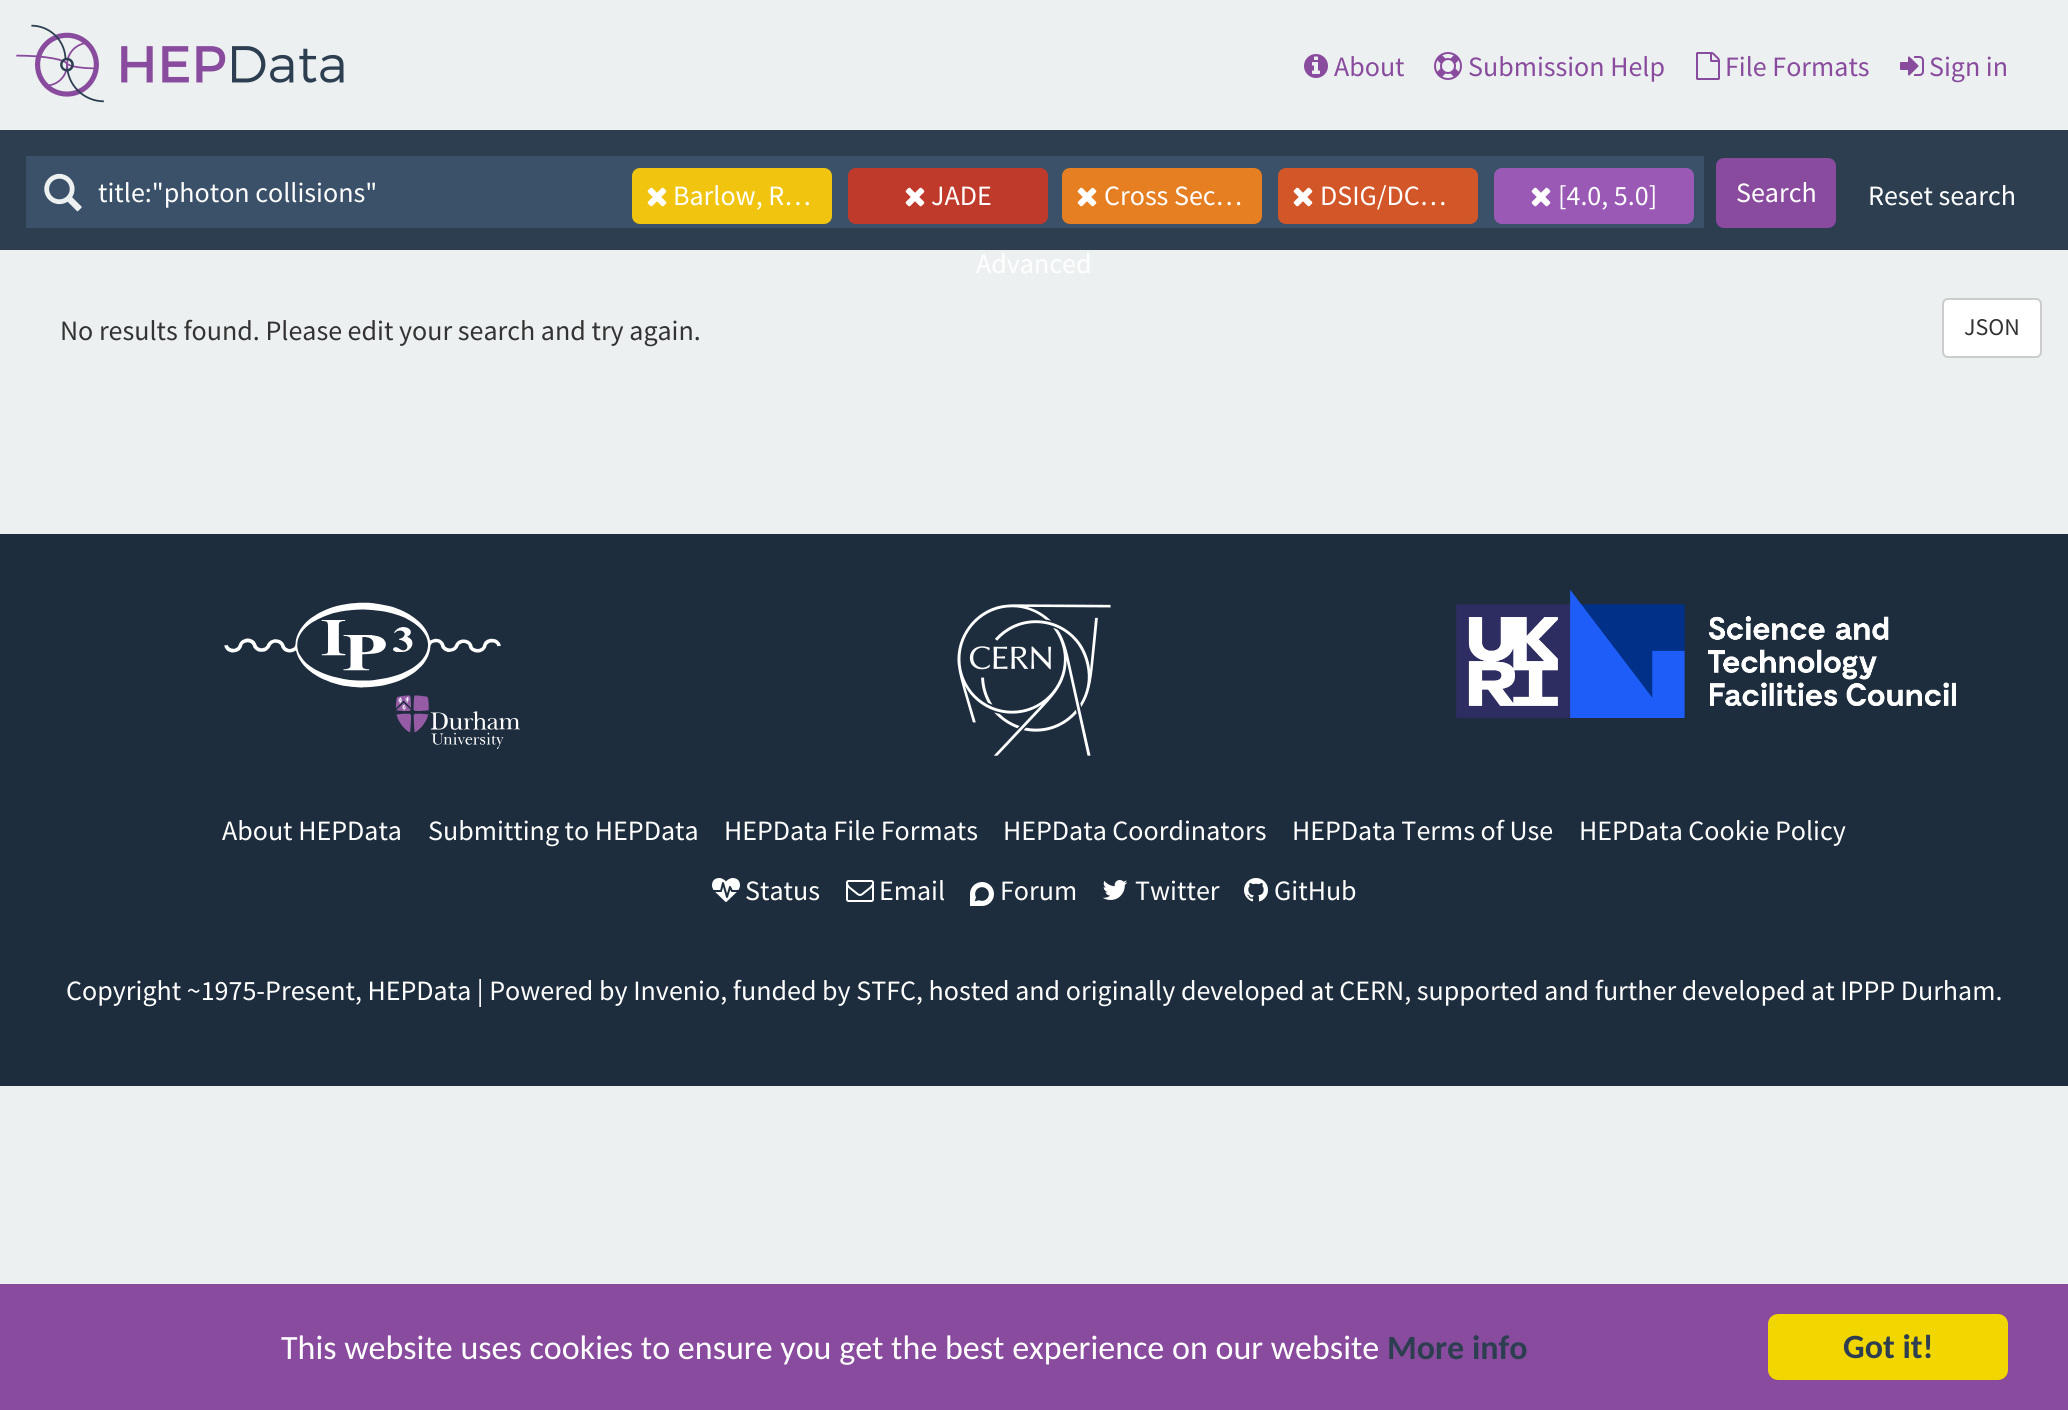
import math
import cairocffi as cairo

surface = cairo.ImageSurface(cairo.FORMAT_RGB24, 2068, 1410)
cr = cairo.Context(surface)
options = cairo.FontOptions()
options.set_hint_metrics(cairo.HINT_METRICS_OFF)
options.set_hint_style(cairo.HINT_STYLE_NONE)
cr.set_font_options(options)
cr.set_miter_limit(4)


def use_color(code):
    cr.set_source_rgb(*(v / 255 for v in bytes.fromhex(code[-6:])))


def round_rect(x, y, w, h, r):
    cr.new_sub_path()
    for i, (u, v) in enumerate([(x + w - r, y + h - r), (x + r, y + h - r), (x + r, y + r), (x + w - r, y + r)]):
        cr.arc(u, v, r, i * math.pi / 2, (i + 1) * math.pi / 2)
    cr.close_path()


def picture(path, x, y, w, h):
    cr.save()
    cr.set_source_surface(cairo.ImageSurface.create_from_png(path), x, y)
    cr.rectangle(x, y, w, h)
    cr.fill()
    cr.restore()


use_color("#ecf0f1")
cr.paint()
picture("img1.png", 16, 24, 328, 79)
picture("img2.png", 1304, 54, 24, 24)
cr.select_font_face("Source Sans Pro")
cr.set_font_size(28)
use_color("#894b9d")
cr.move_to(1334, 76)
cr.show_text("About")
picture("img3.png", 1434, 52, 28, 28)
cr.move_to(1468, 76)
cr.show_text("Submission Help")
picture("img4.png", 1696, 52, 24, 28)
cr.move_to(1725, 76)
cr.show_text("File Formats")
picture("img5.png", 1900, 56, 24, 20)
cr.move_to(1929, 76)
cr.show_text("Sign in")
use_color("#2c3e50")
cr.rectangle(0, 130, 2068, 120)
cr.fill()
use_color("#3b5169")
cr.rectangle(26, 156, 1678, 72)
cr.fill()
picture("img6.png", 44, 173, 38, 39)
use_color("#ffffff")
cr.move_to(98, 202)
cr.show_text("title:\"photon collisions\"")
use_color("#f1c40f")
round_rect(632, 168, 200, 56, 8)
cr.fill()
picture("img7.png", 647, 187, 20, 20)
use_color("#ffffff")
cr.move_to(673, 205)
cr.show_text("Barlow, R…")
use_color("#c03a2b")
round_rect(848, 168, 200, 56, 8)
cr.fill()
picture("img8.png", 905, 187, 20, 20)
use_color("#ffffff")
cr.move_to(931, 205)
cr.show_text("JADE")
use_color("#e67e22")
round_rect(1062, 168, 200, 56, 8)
cr.fill()
picture("img9.png", 1077, 187, 20, 20)
use_color("#ffffff")
cr.move_to(1104, 205)
cr.show_text("Cross Sec…")
use_color("#d25627")
round_rect(1278, 168, 200, 56, 8)
cr.fill()
picture("img10.png", 1293, 187, 20, 20)
use_color("#ffffff")
cr.move_to(1320, 205)
cr.show_text("DSIG/DC…")
use_color("#9b59b6")
round_rect(1494, 168, 200, 56, 8)
cr.fill()
picture("img11.png", 1531, 187, 20, 20)
use_color("#ffffff")
cr.move_to(1558, 205)
cr.show_text("[4.0, 5.0]")
use_color("#894b9d")
round_rect(1716, 158, 120, 70, 8)
cr.fill()
use_color("#ffffff")
cr.move_to(1736, 202)
cr.show_text("Search")
cr.move_to(1868, 205)
cr.show_text("Reset search")
cr.move_to(976, 273)
cr.show_text("Advanced")
round_rect(1943, 299, 98, 58, 5)
cr.fill_preserve()
use_color("#cccccc")
cr.stroke()
cr.set_font_size(24)
use_color("#333333")
cr.move_to(1964, 335)
cr.show_text("JSON")
cr.set_font_size(28)
cr.move_to(60, 340)
cr.show_text("No results found. Please edit your search and try again.")
use_color("#1d2d3d")
cr.rectangle(0, 534, 2068, 552)
cr.fill()
picture("img12.png", 224, 602, 296, 147)
picture("img13.png", 957, 604, 154, 152)
picture("img14.png", 1456, 590, 500, 128)
use_color("#ffffff")
cr.move_to(222, 840)
cr.show_text("About HEPData")
cr.move_to(428, 840)
cr.show_text("Submitting to HEPData")
cr.move_to(724, 840)
cr.show_text("HEPData File Formats")
cr.move_to(1003, 840)
cr.show_text("HEPData Coordinators")
cr.move_to(1292, 840)
cr.show_text("HEPData Terms of Use")
cr.move_to(1579, 840)
cr.show_text("HEPData Cookie Policy")
picture("img15.png", 712, 878, 28, 24)
cr.move_to(745, 900)
cr.show_text("Status")
picture("img16.png", 846, 880, 28, 22)
cr.move_to(879, 900)
cr.show_text("Email")
picture("img17.png", 970, 882, 24, 24)
cr.move_to(1000, 900)
cr.show_text("Forum")
picture("img18.png", 1102, 880, 26, 20)
cr.move_to(1135, 900)
cr.show_text("Twitter")
picture("img19.png", 1244, 878, 24, 24)
cr.move_to(1274, 900)
cr.show_text("GitHub")
cr.move_to(66, 1000)
cr.show_text("Copyright ~1975-Present, HEPData | Powered by Invenio, funded by STFC, hosted and originally developed at CERN, supported and further developed at IPPP Durham.")
use_color("#894b9d")
cr.rectangle(0, 1284, 2068, 126)
cr.fill()
cr.select_font_face("Carlito")
cr.set_font_size(34)
use_color("#ffffff")
cr.move_to(281, 1359)
cr.show_text("This website uses cookies to ensure you get the best experience on our website")
cr.select_font_face("Carlito", cairo.FONT_SLANT_NORMAL, cairo.FONT_WEIGHT_BOLD)
use_color("#2c3e50")
cr.move_to(1387, 1359)
cr.show_text("More info")
use_color("#f1d600")
round_rect(1768, 1314, 240, 66, 10)
cr.fill()
use_color("#2c3e50")
cr.move_to(1843, 1358)
cr.show_text("Got it!")
surface.write_to_png("result.png")
